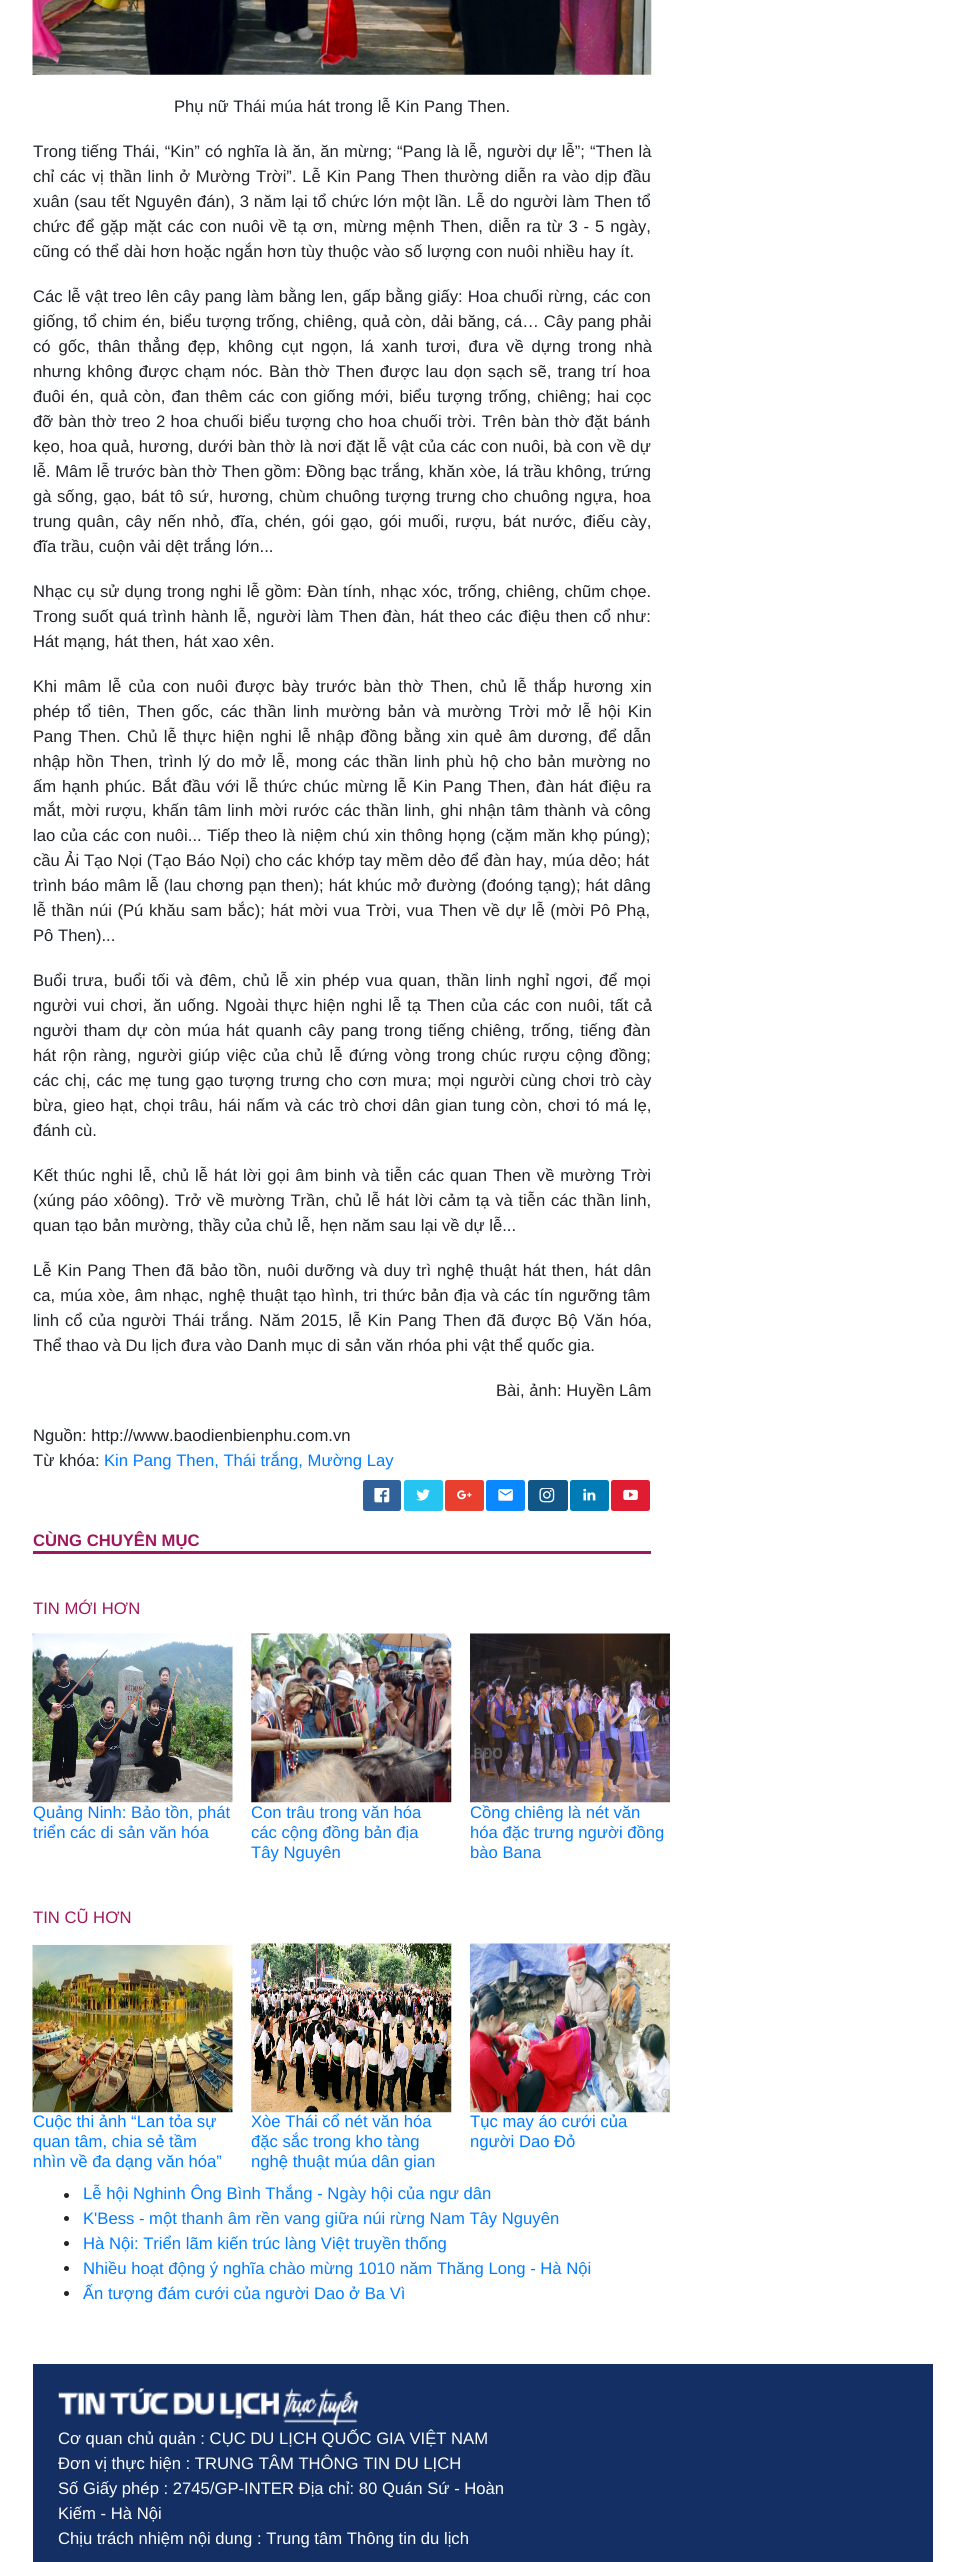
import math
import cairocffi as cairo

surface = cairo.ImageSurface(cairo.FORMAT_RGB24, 965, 2562)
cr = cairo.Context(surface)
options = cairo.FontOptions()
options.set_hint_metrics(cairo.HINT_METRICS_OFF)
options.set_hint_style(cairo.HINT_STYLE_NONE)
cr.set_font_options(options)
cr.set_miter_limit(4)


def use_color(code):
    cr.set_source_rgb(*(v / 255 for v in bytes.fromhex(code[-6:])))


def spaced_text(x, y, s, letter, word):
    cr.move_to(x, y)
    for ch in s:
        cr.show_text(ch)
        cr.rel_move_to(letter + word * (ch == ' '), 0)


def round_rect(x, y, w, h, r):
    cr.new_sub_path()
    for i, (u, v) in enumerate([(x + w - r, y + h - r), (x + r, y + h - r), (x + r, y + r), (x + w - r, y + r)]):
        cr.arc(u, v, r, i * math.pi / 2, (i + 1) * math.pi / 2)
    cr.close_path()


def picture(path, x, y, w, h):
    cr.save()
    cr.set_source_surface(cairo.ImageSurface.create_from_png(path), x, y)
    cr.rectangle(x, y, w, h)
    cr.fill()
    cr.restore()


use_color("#ffffff")
cr.paint()
picture("img1.png", 32, 0, 620, 75)
cr.select_font_face("Liberation Sans")
cr.set_font_size(16.65)
use_color("#212529")
cr.move_to(174, 112)
cr.show_text("Phụ nữ Thái múa hát trong lễ Kin Pang Then.")
spaced_text(33, 157, "Trong tiếng Thái, “Kin” có nghĩa là ăn, ăn mừng; “Pang là lễ, người dự lễ”; “Then là", 0, 0.4)
spaced_text(33, 182, "chỉ các vị thần linh ở Mường Trời”. Lễ Kin Pang Then thường diễn ra vào dịp đầu", 0, 1.1)
spaced_text(33, 207, "xuân (sau tết Nguyên đán), 3 năm lại tổ chức lớn một lần. Lễ do người làm Then tổ", 0, 0.25)
spaced_text(33, 232, "chức để gặp mặt các con nuôi về tạ ơn, mừng mệnh Then, diễn ra từ 3 - 5 ngày,", 0, 1.25)
cr.move_to(33, 257)
cr.show_text("cũng có thể dài hơn hoặc ngắn hơn tùy thuộc vào số lượng con nuôi nhiều hay ít.")
spaced_text(33, 302, "Các lễ vật treo lên cây pang làm bằng len, gấp bằng giấy: Hoa chuối rừng, các con", 0, 0.4)
spaced_text(33, 327, "giống, tổ chim én, biểu tượng trống, chiêng, quả còn, dải băng, cá… Cây pang phải", 0, 0.2)
spaced_text(33, 352, "có gốc, thân thẳng đẹp, không cụt ngọn, lá xanh tươi, đưa về dựng trong nhà", 0, 3.25)
spaced_text(33, 377, "nhưng không được chạm nóc. Bàn thờ Then được lau dọn sạch sẽ, trang trí hoa", 0, 1.5)
spaced_text(33, 402, "đuôi én, quả còn, đan thêm các con giống mới, biểu tượng trống, chiêng; hai cọc", 0, 1.5)
spaced_text(33, 427, "đỡ bàn thờ treo 2 hoa chuối biểu tượng cho hoa chuối trời. Trên bàn thờ đặt bánh", 0, 0.75)
spaced_text(33, 452, "kẹo, hoa quả, hương, dưới bàn thờ là nơi đặt lễ vật của các con nuôi, bà con về dự", 0, 0.1)
cr.move_to(33, 477)
cr.show_text("lễ. Mâm lễ trước bàn thờ Then gồm: Đồng bạc trắng, khăn xòe, lá trầu không, trứng")
spaced_text(33, 502, "gà sống, gạo, bát tô sứ, hương, chùm chuông tượng trưng cho chuông ngựa, hoa", 0, 0.9)
spaced_text(33, 527, "trung quân, cây nến nhỏ, đĩa, chén, gói gạo, gói muối, rượu, bát nước, điếu cày,", 0, 1.75)
cr.move_to(33, 552)
cr.show_text("đĩa trầu, cuộn vải dệt trắng lớn...")
spaced_text(33, 597, "Nhạc cụ sử dụng trong nghi lễ gồm: Đàn tính, nhạc xóc, trống, chiêng, chũm chọe.", 0, 0.6)
spaced_text(33, 622, "Trong suốt quá trình hành lễ, người làm Then đàn, hát theo các điệu then cổ như:", 0, 0.9)
cr.move_to(33, 647)
cr.show_text("Hát mạng, hát then, hát xao xên.")
spaced_text(33, 692, "Khi mâm lễ của con nuôi được bày trước bàn thờ Then, chủ lễ thắp hương xin", 0, 2.5)
spaced_text(33, 717, "phép tổ tiên, Then gốc, các thần linh mường bản và mường Trời mở lễ hội Kin", 0, 2.5)
spaced_text(33, 742, "Pang Then. Chủ lễ thực hiện nghi lễ nhập đồng bằng xin quẻ âm dương, để dẫn", 0, 1.6)
spaced_text(33, 767, "nhập hồn Then, trình lý do mở lễ, mong các thần linh phù hộ cho bản mường no", 0, 1.5)
spaced_text(33, 792, "ấm hạnh phúc. Bắt đầu với lễ thức chúc mừng lễ Kin Pang Then, đàn hát điệu ra", 0, 1.3)
spaced_text(33, 816, "mắt, mời rượu, khấn tâm linh mời rước các thần linh, ghi nhận tâm thành và công", 0, 1)
spaced_text(33, 841, "lao của các con nuôi... Tiếp theo là niệm chú xin thông họng (cặm măn khọ púng);", 0, 0.75)
cr.move_to(33, 866)
cr.show_text("cầu Ải Tạo Nọi (Tạo Báo Nọi) cho các khớp tay mềm dẻo để đàn hay, múa dẻo; hát")
spaced_text(33, 891, "trình báo mâm lễ (lau chơng pạn then); hát khúc mở đường (đoóng tạng); hát dâng", 0, 0.3)
spaced_text(33, 916, "lễ thần núi (Pú khău sam bắc); hát mời vua Trời, vua Then về dự lễ (mời Pô Phạ,", 0, 1)
cr.move_to(33, 941)
cr.show_text("Pô Then)...")
spaced_text(33, 986, "Buổi trưa, buổi tối và đêm, chủ lễ xin phép vua quan, thần linh nghỉ ngơi, để mọi", 0, 1.6)
spaced_text(33, 1011, "người vui chơi, ăn uống. Ngoài thực hiện nghi lễ tạ Then của các con nuôi, tất cả", 0, 1.25)
spaced_text(33, 1036, "người tham dự còn múa hát quanh cây pang trong tiếng chiêng, trống, tiếng đàn", 0, 1.8)
spaced_text(33, 1061, "hát rộn ràng, người giúp việc của chủ lễ đứng vòng trong chúc rượu cộng đồng;", 0, 1.9)
spaced_text(33, 1086, "các chị, các mẹ tung gạo tượng trưng cho cơn mưa; mọi người cùng chơi trò cày", 0, 1.2)
spaced_text(33, 1111, "bừa, gieo hạt, chọi trâu, hái nấm và các trò chơi dân gian tung còn, chơi tó má lẹ,", 0, 1)
cr.move_to(33, 1136)
cr.show_text("đánh cù.")
spaced_text(33, 1181, "Kết thúc nghi lễ, chủ lễ hát lời gọi âm binh và tiễn các quan Then về mường Trời", 0, 1.3)
spaced_text(33, 1206, "(xúng páo xôông). Trở về mường Trần, chủ lễ hát lời cảm tạ và tiễn các thần linh,", 0, 1)
cr.move_to(33, 1231)
cr.show_text("quan tạo bản mường, thầy của chủ lễ, hẹn năm sau lại về dự lễ...")
spaced_text(33, 1276, "Lễ Kin Pang Then đã bảo tồn, nuôi dưỡng và duy trì nghệ thuật hát then, hát dân", 0, 1.2)
spaced_text(33, 1301, "ca, múa xòe, âm nhạc, nghệ thuật tạo hình, tri thức bản địa và các tín ngưỡng tâm", 0, 0.5)
spaced_text(33, 1326, "linh cổ của người Thái trắng. Năm 2015, lễ Kin Pang Then đã được Bộ Văn hóa,", 0, 1.5)
cr.move_to(33, 1351)
cr.show_text("Thể thao và Du lịch đưa vào Danh mục di sản văn rhóa phi vật thể quốc gia.")
cr.move_to(496, 1396)
cr.show_text("Bài, ảnh: Huyền Lâm")
cr.move_to(33, 1441)
cr.show_text("Nguồn: http://www.baodienbienphu.com.vn")
cr.move_to(33, 1466)
cr.show_text("Từ khóa:")
use_color("#007bff")
cr.move_to(104, 1466)
cr.show_text("Kin Pang Then, Thái trắng, Mường Lay")
use_color("#306199")
round_rect(363, 1480, 38, 31, 2.5)
cr.fill()
picture("img2.png", 374, 1488, 16, 15)
use_color("#26c4f1")
round_rect(404, 1480, 39, 31, 2.5)
cr.fill()
picture("img3.png", 416, 1489, 14, 12)
use_color("#e93f2e")
round_rect(445, 1480, 39, 31, 2.5)
cr.fill()
picture("img4.png", 457, 1490, 15, 10)
use_color("#0a88ff")
round_rect(486, 1480, 39, 31, 2.5)
cr.fill()
picture("img5.png", 498, 1489, 15, 12)
use_color("#125688")
round_rect(528, 1480, 40, 31, 2.5)
cr.fill()
picture("img6.png", 539, 1488, 16, 15)
use_color("#007bb6")
round_rect(570, 1480, 39, 31, 2.5)
cr.fill()
picture("img7.png", 583, 1488, 13, 13)
use_color("#df1c31")
round_rect(611, 1480, 39, 31, 2.5)
cr.fill()
picture("img8.png", 623, 1489, 15, 11)
use_color("#9f175c")
cr.rectangle(33, 1551, 618, 3)
cr.fill()
cr.select_font_face("Liberation Sans", cairo.FONT_SLANT_NORMAL, cairo.FONT_WEIGHT_BOLD)
cr.move_to(33, 1546)
cr.show_text("CÙNG CHUYÊN MỤC")
cr.select_font_face("Liberation Sans")
cr.move_to(33, 1614)
cr.show_text("TIN MỚI HƠN")
picture("img9.png", 32, 1633, 201, 170)
use_color("#007bff")
cr.move_to(33, 1818)
cr.show_text("Quảng Ninh: Bảo tồn, phát")
cr.move_to(33, 1838)
cr.show_text("triển các di sản văn hóa")
picture("img10.png", 251, 1633, 201, 170)
cr.move_to(251, 1818)
cr.show_text("Con trâu trong văn hóa")
cr.move_to(251, 1838)
cr.show_text("các cộng đồng bản địa")
cr.move_to(251, 1858)
cr.show_text("Tây Nguyên")
picture("img11.png", 470, 1633, 200, 170)
cr.move_to(470, 1818)
cr.show_text("Cồng chiêng là nét văn")
cr.move_to(470, 1838)
cr.show_text("hóa đặc trưng người đồng")
cr.move_to(470, 1858)
cr.show_text("bào Bana")
use_color("#9f175c")
cr.move_to(33, 1923)
cr.show_text("TIN CŨ HƠN")
picture("img12.png", 32, 1943, 201, 170)
use_color("#007bff")
cr.move_to(33, 2127)
cr.show_text("Cuộc thi ảnh “Lan tỏa sự")
cr.move_to(33, 2147)
cr.show_text("quan tâm, chia sẻ tầm")
cr.move_to(33, 2167)
cr.show_text("nhìn về đa dạng văn hóa”")
picture("img13.png", 251, 1943, 201, 170)
cr.move_to(251, 2127)
cr.show_text("Xòe Thái cổ nét văn hóa")
cr.move_to(251, 2147)
cr.show_text("đặc sắc trong kho tàng")
cr.move_to(251, 2167)
cr.show_text("nghệ thuật múa dân gian")
picture("img14.png", 470, 1943, 200, 170)
cr.move_to(470, 2127)
cr.show_text("Tục may áo cưới của")
cr.move_to(470, 2147)
cr.show_text("người Dao Đỏ")
use_color("#212529")
cr.new_path()
cr.arc(66.5, 2195.5, 2.5, 0, 2 * math.pi)
cr.fill()
use_color("#007bff")
cr.move_to(83, 2199)
cr.show_text("Lễ hội Nghinh Ông Bình Thắng - Ngày hội của ngư dân")
use_color("#212529")
cr.new_path()
cr.arc(66.5, 2218.5, 2.5, 0, 2 * math.pi)
cr.fill()
use_color("#007bff")
cr.move_to(83, 2224)
cr.show_text("K'Bess - một thanh âm rền vang giữa núi rừng Nam Tây Nguyên")
use_color("#212529")
cr.new_path()
cr.arc(66.5, 2243.5, 2.5, 0, 2 * math.pi)
cr.fill()
use_color("#007bff")
cr.move_to(83, 2249)
cr.show_text("Hà Nội: Triển lãm kiến trúc làng Việt truyền thống")
use_color("#212529")
cr.new_path()
cr.arc(66.5, 2268.5, 2.5, 0, 2 * math.pi)
cr.fill()
use_color("#007bff")
cr.move_to(83, 2274)
cr.show_text("Nhiều hoạt động ý nghĩa chào mừng 1010 năm Thăng Long - Hà Nội")
use_color("#212529")
cr.new_path()
cr.arc(66.5, 2293.5, 2.5, 0, 2 * math.pi)
cr.fill()
use_color("#007bff")
cr.move_to(83, 2299)
cr.show_text("Ấn tượng đám cưới của người Dao ở Ba Vì")
use_color("#142f64")
cr.rectangle(33, 2364, 900, 198)
cr.fill()
picture("img15.png", 58, 2388, 301, 38)
use_color("#ffffff")
cr.move_to(58, 2444)
cr.show_text("Cơ quan chủ quản : CỤC DU LỊCH QUỐC GIA VIỆT NAM")
cr.move_to(58, 2469)
cr.show_text("Đơn vị thực hiện : TRUNG TÂM THÔNG TIN DU LỊCH")
cr.move_to(58, 2494)
cr.show_text("Số Giấy phép : 2745/GP-INTER Địa chỉ: 80 Quán Sứ - Hoàn")
cr.move_to(58, 2519)
cr.show_text("Kiếm - Hà Nội")
cr.move_to(58, 2544)
cr.show_text("Chịu trách nhiệm nội dung : Trung tâm Thông tin du lịch")
surface.write_to_png("result.png")
